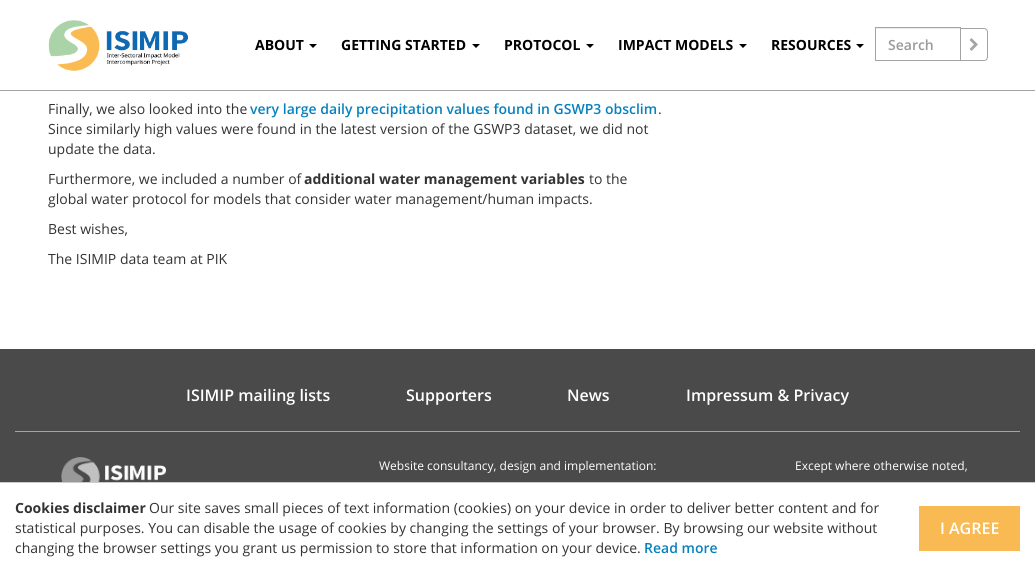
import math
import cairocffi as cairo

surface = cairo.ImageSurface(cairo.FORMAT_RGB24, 1035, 573)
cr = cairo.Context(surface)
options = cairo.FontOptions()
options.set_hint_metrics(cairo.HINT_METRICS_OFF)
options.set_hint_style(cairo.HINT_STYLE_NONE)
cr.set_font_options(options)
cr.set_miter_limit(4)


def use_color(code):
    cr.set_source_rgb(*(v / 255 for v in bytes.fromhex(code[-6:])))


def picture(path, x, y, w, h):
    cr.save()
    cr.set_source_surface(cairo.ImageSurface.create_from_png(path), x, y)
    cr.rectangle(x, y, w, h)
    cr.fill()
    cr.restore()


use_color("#ffffff")
cr.paint()
use_color("#a4a4a4")
cr.rectangle(0, 90, 1035, 1)
cr.fill()
picture("img1.png", 48, 20, 140, 51)
cr.select_font_face("Open Sans", cairo.FONT_SLANT_NORMAL, cairo.FONT_WEIGHT_BOLD)
cr.set_font_size(14)
use_color("#000000")
cr.move_to(255, 50)
cr.show_text("ABOUT")
cr.new_path()
cr.move_to(309, 44)
cr.line_to(317, 44)
cr.line_to(313, 48)
cr.close_path()
cr.fill()
cr.move_to(341, 50)
cr.show_text("GETTING STARTED")
cr.new_path()
cr.move_to(472, 44)
cr.line_to(480, 44)
cr.line_to(476, 48)
cr.close_path()
cr.fill()
cr.move_to(504, 50)
cr.show_text("PROTOCOL")
cr.new_path()
cr.move_to(586, 44)
cr.line_to(594, 44)
cr.line_to(590, 48)
cr.close_path()
cr.fill()
cr.move_to(618, 50)
cr.show_text("IMPACT MODELS")
cr.new_path()
cr.move_to(739, 44)
cr.line_to(747, 44)
cr.line_to(743, 48)
cr.close_path()
cr.fill()
cr.move_to(771, 50)
cr.show_text("RESOURCES")
cr.new_path()
cr.move_to(856, 44)
cr.line_to(864, 44)
cr.line_to(860, 48)
cr.close_path()
cr.fill()
use_color("#ececec")
cr.rectangle(876, 28, 84, 1)
cr.fill()
cr.rectangle(875.5, 27.5, 85, 33)
use_color("#a4a4a4")
cr.set_line_width(1)
cr.stroke()
cr.select_font_face("Open Sans SemiBold")
use_color("#999999")
cr.move_to(888, 50)
cr.show_text("Search")
cr.new_path()
cr.move_to(960.5, 28.5)
cr.line_to(984, 28.5)
cr.curve_to(986, 28.5, 987.5, 30, 987.5, 32)
cr.line_to(987.5, 57)
cr.curve_to(987.5, 59, 986, 60.5, 984, 60.5)
cr.line_to(960.5, 60.5)
cr.close_path()
use_color("#a4a4a4")
cr.stroke()
picture("img2.png", 969, 38, 9, 13)
cr.select_font_face("Open Sans")
use_color("#333333")
cr.move_to(48, 114)
cr.show_text("Finally, we also looked into the")
cr.select_font_face("Open Sans SemiBold")
use_color("#0681be")
cr.move_to(250, 114)
cr.show_text("very large daily precipitation values found in GSWP3 obsclim")
cr.select_font_face("Open Sans")
use_color("#333333")
cr.move_to(658, 114)
cr.show_text(".")
cr.move_to(48, 134)
cr.show_text("Since similarly high values were found in the latest version of the GSWP3 dataset, we did not")
cr.move_to(48, 154)
cr.show_text("update the data.")
cr.move_to(48, 184)
cr.show_text("Furthermore, we included a number of")
cr.select_font_face("Open Sans", cairo.FONT_SLANT_NORMAL, cairo.FONT_WEIGHT_BOLD)
cr.move_to(304, 184)
cr.show_text("additional water management variables")
cr.select_font_face("Open Sans")
cr.move_to(589, 184)
cr.show_text("to the")
cr.move_to(48, 204)
cr.show_text("global water protocol for models that consider water management/human impacts.")
cr.move_to(48, 234)
cr.show_text("Best wishes,")
cr.move_to(48, 264)
cr.show_text("The ISIMIP data team at PIK")
use_color("#4a4a4a")
cr.rectangle(0, 349, 1035, 133)
cr.fill()
cr.select_font_face("Open Sans SemiBold")
cr.set_font_size(16)
use_color("#ffffff")
cr.move_to(186, 401)
cr.show_text("ISIMIP mailing lists")
cr.move_to(406, 401)
cr.show_text("Supporters")
cr.move_to(567, 401)
cr.show_text("News")
cr.move_to(686, 401)
cr.show_text("Impressum & Privacy")
use_color("#a4a4a4")
cr.rectangle(15, 431, 1005, 1)
cr.fill()
picture("img3.png", 61, 457, 105, 25)
cr.select_font_face("Open Sans")
cr.set_font_size(12)
use_color("#ffffff")
cr.move_to(379, 470)
cr.show_text("Website consultancy, design and implementation:")
cr.move_to(795, 470)
cr.show_text("Except where otherwise noted,")
use_color("#cccccc")
cr.rectangle(0, 482, 1035, 1)
cr.fill()
cr.select_font_face("Open Sans", cairo.FONT_SLANT_NORMAL, cairo.FONT_WEIGHT_BOLD)
cr.set_font_size(14)
use_color("#333333")
cr.move_to(15, 513)
cr.show_text("Cookies disclaimer")
cr.select_font_face("Open Sans")
cr.move_to(149, 513)
cr.show_text("Our site saves small pieces of text information (cookies) on your device in order to deliver better content and for")
cr.move_to(15, 533)
cr.show_text("statistical purposes. You can disable the usage of cookies by changing the settings of your browser. By browsing our website without")
use_color("#faba53")
cr.rectangle(919, 506, 101, 45)
cr.fill()
cr.select_font_face("Open Sans SemiBold")
cr.set_font_size(16)
use_color("#ffffff")
cr.move_to(940, 534)
cr.show_text("I AGREE")
cr.select_font_face("Open Sans")
cr.set_font_size(14)
use_color("#333333")
cr.move_to(15, 553)
cr.show_text("changing the browser settings you grant us permission to store that information on your device.")
cr.select_font_face("Open Sans SemiBold")
use_color("#0681be")
cr.move_to(644, 553)
cr.show_text("Read more")
surface.write_to_png("result.png")
